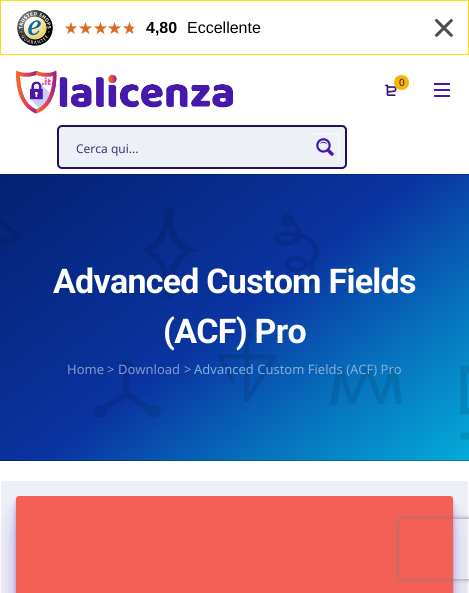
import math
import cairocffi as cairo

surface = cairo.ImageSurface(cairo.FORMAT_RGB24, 469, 593)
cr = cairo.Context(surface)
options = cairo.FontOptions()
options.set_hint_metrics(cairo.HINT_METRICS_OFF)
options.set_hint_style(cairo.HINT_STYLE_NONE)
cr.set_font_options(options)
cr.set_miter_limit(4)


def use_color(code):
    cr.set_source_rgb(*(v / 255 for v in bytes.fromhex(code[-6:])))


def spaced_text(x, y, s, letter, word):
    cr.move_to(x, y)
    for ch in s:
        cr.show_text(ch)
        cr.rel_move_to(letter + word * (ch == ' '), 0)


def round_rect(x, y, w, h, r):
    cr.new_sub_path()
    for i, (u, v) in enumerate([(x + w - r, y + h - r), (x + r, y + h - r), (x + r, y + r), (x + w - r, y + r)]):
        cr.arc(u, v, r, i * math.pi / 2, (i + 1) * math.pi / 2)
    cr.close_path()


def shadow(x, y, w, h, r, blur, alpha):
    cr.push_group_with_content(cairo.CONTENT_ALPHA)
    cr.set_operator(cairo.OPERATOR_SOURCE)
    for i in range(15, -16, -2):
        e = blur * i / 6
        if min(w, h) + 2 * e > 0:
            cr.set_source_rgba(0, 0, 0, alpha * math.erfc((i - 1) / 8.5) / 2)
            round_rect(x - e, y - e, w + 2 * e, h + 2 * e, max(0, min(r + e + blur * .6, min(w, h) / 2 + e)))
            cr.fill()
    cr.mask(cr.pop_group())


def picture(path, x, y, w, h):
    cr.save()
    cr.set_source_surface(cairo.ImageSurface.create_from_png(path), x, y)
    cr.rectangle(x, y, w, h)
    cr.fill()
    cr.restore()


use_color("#ffffff")
cr.paint()
cr.rectangle(0.5, 0.5, 468, 54)
use_color("#ffdc0f")
cr.set_line_width(1)
cr.stroke()
picture("img1.png", 17, 10, 36, 36)
picture("img2.png", 65, 22, 12, 12)
picture("img3.png", 79, 22, 13, 12)
picture("img3.png", 94, 22, 13, 12)
picture("img3.png", 108, 22, 13, 12)
picture("img3.png", 123, 22, 13, 12)
picture("img4.png", 65, 22, 12, 12)
picture("img5.png", 79, 22, 13, 12)
picture("img5.png", 94, 22, 13, 12)
picture("img5.png", 108, 22, 13, 12)
picture("img6.png", 123, 22, 10, 12)
cr.select_font_face("Liberation Sans", cairo.FONT_SLANT_NORMAL, cairo.FONT_WEIGHT_BOLD)
cr.set_font_size(16)
use_color("#000000")
cr.move_to(146, 33)
cr.show_text("4,80")
cr.select_font_face("Liberation Sans")
cr.move_to(187, 33)
cr.show_text("Eccellente")
picture("img7.png", 435, 19, 18, 18)
picture("img8.png", 16, 70, 217, 44)
picture("img9.png", 385, 84, 12, 12)
use_color("#f7b500")
cr.arc(401.5, 82.5, 7.5, 0, 2 * math.pi)
cr.fill()
cr.select_font_face("Noto Sans")
cr.set_font_size(10)
use_color("#1e1450")
cr.move_to(399, 86)
cr.show_text("0")
use_color("#4618ac")
cr.rectangle(434, 89, 16, 2)
cr.fill()
cr.rectangle(434, 83, 16, 2)
cr.fill()
cr.rectangle(434, 95, 16, 2)
cr.fill()
use_color("#edf0f7")
round_rect(58, 126, 288, 42, 4)
cr.fill_preserve()
use_color("#24105a")
cr.set_line_width(2)
cr.stroke()
cr.set_font_size(12)
use_color("#423272")
cr.move_to(76, 153)
cr.show_text("Cerca qui...")
cr.save()
cr.rectangle(311, 133, 28, 28)
cr.clip()
use_color("#f9fafc")
cr.set_fill_rule(cairo.FILL_RULE_EVEN_ODD)
cr.new_path()
cr.move_to(212, 167)
cr.line_to(212, 127)
cr.line_to(342, 127)
cr.curve_to(344, 127, 345, 128, 345, 130)
cr.line_to(345, 164)
cr.curve_to(345, 166, 344, 167, 342, 167)
cr.close_path()
cr.move_to(310, 134)
cr.line_to(310, 162)
cr.line_to(338, 162)
cr.line_to(338, 134)
cr.close_path()
cr.fill()
cr.restore()
picture("img10.png", 316, 138, 18, 18)
picture("img11.png", 0, 174, 469, 287)
cr.select_font_face("Roboto", cairo.FONT_SLANT_NORMAL, cairo.FONT_WEIGHT_BOLD)
cr.set_font_size(34)
use_color("#ffffff")
spaced_text(53, 293, "Advanced Custom Fields", -0.75, 0)
spaced_text(163, 343, "(ACF) Pro", -0.75, 0)
cr.select_font_face("Noto Sans")
cr.set_font_size(13)
use_color("#8498cc")
cr.move_to(67, 374)
cr.show_text("Home")
cr.move_to(107, 374)
cr.show_text(">")
cr.move_to(118, 374)
cr.show_text("Download")
use_color("#849dd2")
cr.move_to(184, 374)
cr.show_text(">")
use_color("#83acd8")
cr.move_to(194, 374)
cr.show_text("Advanced Custom Fields (ACF) Pro")
use_color("#edf0f7")
cr.rectangle(1, 481, 467, 112)
cr.fill()
use_color("#4618ac")
shadow(16, 528, 437, 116, 3, 16, 0.15)
shadow(16, 512, 437, 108, 3, 8, 0.15)
shadow(16, 504, 437, 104, 3, 4, 0.15)
shadow(16, 500, 437, 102, 3, 2, 0.15)
shadow(16, 498, 437, 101, 3, 1, 0.15)
picture("img12.png", 16, 496, 437, 97)
cr.save()
cr.set_fill_rule(cairo.FILL_RULE_EVEN_ODD)
cr.new_path()
cr.move_to(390, 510)
cr.line_to(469, 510)
cr.line_to(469, 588)
cr.line_to(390, 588)
cr.close_path()
cr.move_to(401, 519)
cr.line_to(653, 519)
cr.curve_to(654, 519, 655, 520, 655, 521)
cr.line_to(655, 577)
cr.curve_to(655, 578, 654, 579, 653, 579)
cr.line_to(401, 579)
cr.curve_to(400, 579, 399, 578, 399, 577)
cr.line_to(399, 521)
cr.curve_to(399, 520, 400, 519, 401, 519)
cr.close_path()
cr.clip()
use_color("#808080")
shadow(399, 519, 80, 60, 2, 2.5, 1)
cr.restore()
surface.write_to_png("result.png")
